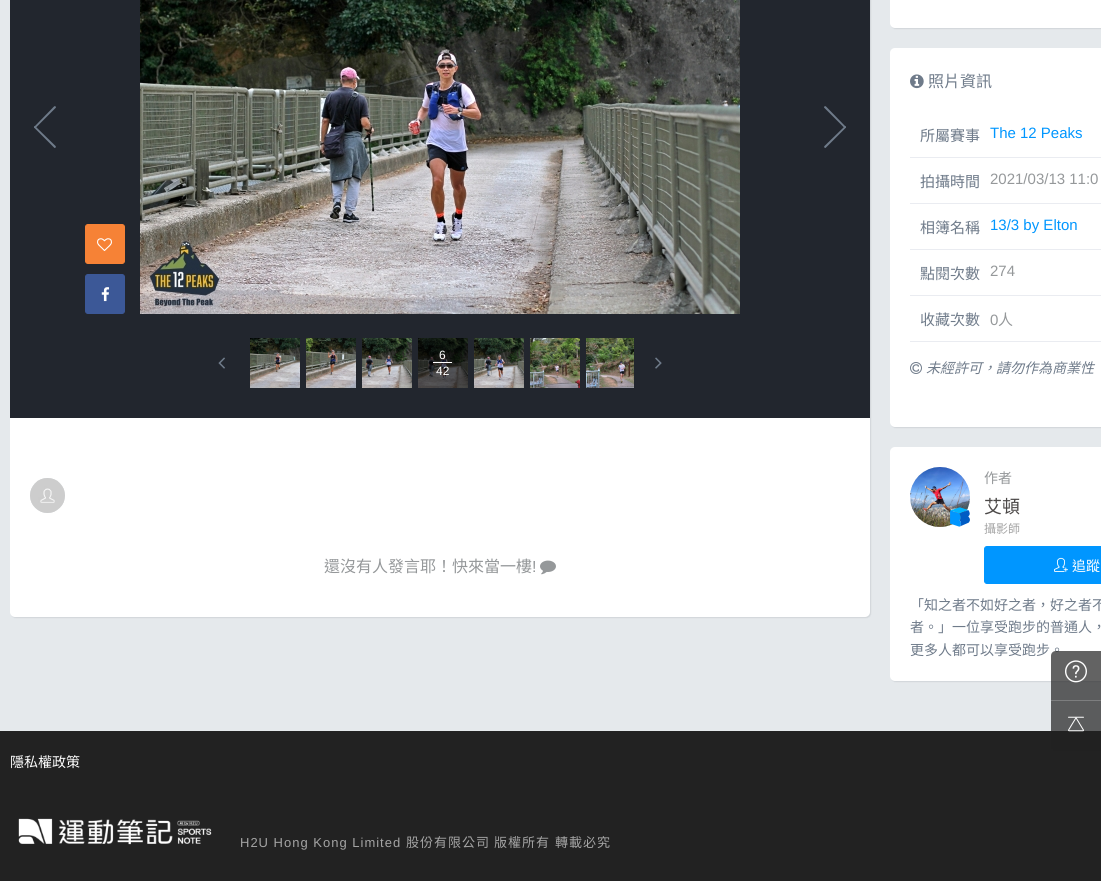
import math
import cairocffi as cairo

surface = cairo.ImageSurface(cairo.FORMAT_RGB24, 1101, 881)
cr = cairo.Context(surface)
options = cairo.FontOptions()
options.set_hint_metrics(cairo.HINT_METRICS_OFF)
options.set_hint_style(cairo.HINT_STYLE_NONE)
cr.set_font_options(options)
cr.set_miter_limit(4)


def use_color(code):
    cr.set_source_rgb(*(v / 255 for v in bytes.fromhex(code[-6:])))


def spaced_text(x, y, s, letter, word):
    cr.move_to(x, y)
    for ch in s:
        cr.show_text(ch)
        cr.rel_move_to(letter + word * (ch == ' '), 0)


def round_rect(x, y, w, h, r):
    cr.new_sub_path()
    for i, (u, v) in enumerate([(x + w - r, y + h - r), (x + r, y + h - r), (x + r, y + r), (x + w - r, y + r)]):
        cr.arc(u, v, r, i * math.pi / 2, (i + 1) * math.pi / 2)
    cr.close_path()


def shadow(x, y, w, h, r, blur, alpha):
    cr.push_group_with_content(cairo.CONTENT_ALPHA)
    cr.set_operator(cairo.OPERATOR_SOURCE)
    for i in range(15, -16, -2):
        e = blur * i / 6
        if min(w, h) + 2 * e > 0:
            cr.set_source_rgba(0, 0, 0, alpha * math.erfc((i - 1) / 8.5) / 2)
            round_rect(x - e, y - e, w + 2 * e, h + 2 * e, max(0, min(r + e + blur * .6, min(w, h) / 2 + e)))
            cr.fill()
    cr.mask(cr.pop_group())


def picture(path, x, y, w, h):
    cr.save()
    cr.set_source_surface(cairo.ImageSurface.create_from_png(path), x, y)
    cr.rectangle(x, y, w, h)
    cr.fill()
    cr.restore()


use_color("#e5e9ec")
cr.paint()
use_color("#22262e")
shadow(11, -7, 860, 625, 5, 0.5, 0.1)
use_color("#ffffff")
round_rect(10, -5, 860, 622, 5)
cr.fill()
use_color("#22262e")
cr.rectangle(10, 0, 860, 418)
cr.fill()
use_color("#6f7b8a")
cr.new_path()
cr.move_to(54, 106.5)
cr.line_to(34.5, 126.5)
cr.line_to(34, 127.5)
cr.curve_to(34.5, 128, 35, 128, 35.5, 128)
cr.line_to(56, 107.5)
cr.curve_to(56, 106.5, 55, 105.5, 54, 106.5)
cr.close_path()
cr.fill()
cr.new_path()
cr.move_to(55.5, 146)
cr.line_to(35.5, 126.5)
cr.line_to(34.5, 126)
cr.curve_to(34, 126.5, 34, 127, 34, 127.5)
cr.line_to(54.5, 148)
cr.curve_to(55.5, 148, 56.5, 147, 55.5, 146)
cr.close_path()
cr.fill()
use_color("#f68236")
round_rect(85.5, 224.5, 39, 39, 2.5)
cr.fill_preserve()
cr.set_line_width(1)
cr.stroke()
picture("img1.png", 97, 238, 15, 13)
use_color("#3c5897")
round_rect(85.5, 274.5, 39, 39, 2.5)
cr.fill_preserve()
cr.stroke()
picture("img2.png", 101, 287, 9, 15)
picture("img3.png", 140, 0, 600, 314)
use_color("#6f7b8a")
cr.new_path()
cr.move_to(826, 106.5)
cr.line_to(845.5, 126.5)
cr.line_to(846, 127.5)
cr.curve_to(845.5, 128, 845, 128, 844.5, 128)
cr.line_to(824, 107.5)
cr.curve_to(824, 106.5, 825, 105.5, 826, 106.5)
cr.close_path()
cr.fill()
cr.new_path()
cr.move_to(824.5, 146)
cr.line_to(844.5, 126.5)
cr.line_to(845.5, 126)
cr.curve_to(846, 126.5, 846, 127, 846, 127.5)
cr.line_to(825.5, 148)
cr.curve_to(824.5, 148, 823.5, 147, 824.5, 146)
cr.close_path()
cr.fill()
picture("img4.png", 218, 357, 7, 12)
picture("img5.png", 250, 338, 50, 50)
picture("img6.png", 306, 338, 50, 50)
picture("img7.png", 362, 338, 50, 50)
picture("img8.png", 418, 338, 50, 50)
cr.select_font_face("Liberation Sans")
cr.set_font_size(12)
use_color("#ffffff")
cr.move_to(439, 359)
cr.show_text("6")
cr.rectangle(433, 362, 19, 1)
cr.fill()
cr.move_to(436, 375)
cr.show_text("42")
picture("img9.png", 474, 338, 50, 50)
picture("img10.png", 530, 338, 50, 50)
picture("img11.png", 586, 338, 48, 50)
picture("img12.png", 655, 357, 7, 12)
use_color("#e5e9ec")
cr.arc(47.5, 495.5, 17.5, 0, 2 * math.pi)
cr.fill()
picture("img13.png", 30, 478, 35, 35)
cr.select_font_face("Noto Sans CJK TC")
cr.set_font_size(16)
use_color("#95989a")
cr.move_to(324, 572)
cr.show_text("還沒有人發言耶！快來當一樓")
cr.select_font_face("Liberation Sans")
cr.move_to(532, 572)
cr.show_text("!")
picture("img14.png", 540, 560, 16, 15)
use_color("#22262e")
shadow(891, -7, 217, 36, 5, 0.5, 0.1)
use_color("#ffffff")
round_rect(890, -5, 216, 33, 5)
cr.fill()
use_color("#22262e")
shadow(891, 49, 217, 379, 5, 0.5, 0.1)
use_color("#ffffff")
round_rect(890, 48, 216, 379, 5)
cr.fill()
picture("img15.png", 910, 74, 14, 15)
cr.select_font_face("Noto Sans CJK TC")
use_color("#6f7b8a")
cr.move_to(928, 87)
cr.show_text("照片資訊")
use_color("#eaecf1")
cr.rectangle(910, 157, 191, 1)
cr.fill()
cr.set_font_size(15)
use_color("#6f7b8a")
cr.move_to(920, 141)
cr.show_text("所屬賽事")
cr.select_font_face("Liberation Sans")
use_color("#0096ff")
cr.move_to(990, 138)
cr.show_text("The 12 Peaks")
use_color("#eaecf1")
cr.rectangle(910, 203, 191, 1)
cr.fill()
cr.select_font_face("Noto Sans CJK TC")
use_color("#6f7b8a")
cr.move_to(920, 187)
cr.show_text("拍攝時間")
cr.select_font_face("Liberation Sans")
use_color("#95989a")
cr.move_to(990, 184)
cr.show_text("2021/03/13 11:0")
use_color("#eaecf1")
cr.rectangle(910, 249, 191, 1)
cr.fill()
cr.select_font_face("Noto Sans CJK TC")
use_color("#6f7b8a")
cr.move_to(920, 233)
cr.show_text("相簿名稱")
cr.select_font_face("Liberation Sans")
use_color("#0096ff")
cr.move_to(990, 230)
cr.show_text("13/3 by Elton")
use_color("#eaecf1")
cr.rectangle(910, 295, 191, 1)
cr.fill()
cr.select_font_face("Noto Sans CJK TC")
use_color("#6f7b8a")
cr.move_to(920, 279)
cr.show_text("點閱次數")
cr.select_font_face("Liberation Sans")
use_color("#95989a")
cr.move_to(990, 276)
cr.show_text("274")
use_color("#eaecf1")
cr.rectangle(910, 341, 191, 1)
cr.fill()
cr.select_font_face("Noto Sans CJK TC")
use_color("#6f7b8a")
cr.move_to(920, 325)
cr.show_text("收藏次數")
cr.select_font_face("Liberation Sans")
use_color("#95989a")
cr.move_to(990, 325)
cr.show_text("0")
cr.select_font_face("Noto Sans CJK TC")
cr.move_to(998, 325)
cr.show_text("人")
picture("img16.png", 910, 362, 12, 12)
cr.select_font_face("Noto Sans CJK TC", cairo.FONT_SLANT_ITALIC)
cr.set_font_size(14)
use_color("#6f7b8a")
cr.move_to(926, 373)
cr.show_text("未經許可，請勿作為商業性")
use_color("#22262e")
shadow(891, 448, 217, 234, 5, 0.5, 0.1)
use_color("#ffffff")
round_rect(890, 447, 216, 234, 5)
cr.fill()
use_color("#e5e9ec")
cr.arc(940, 497, 30, 0, 2 * math.pi)
cr.fill()
picture("img17.png", 910, 467, 60, 60)
picture("img18.png", 950, 507, 20, 20)
cr.select_font_face("Noto Sans CJK TC")
use_color("#95989a")
cr.move_to(984, 483)
cr.show_text("作者")
cr.set_font_size(18)
use_color("#4c4948")
cr.move_to(984, 513)
cr.show_text("艾頓")
cr.set_font_size(12)
use_color("#a4a4a4")
cr.move_to(984, 533)
cr.show_text("攝影師")
use_color("#0096ff")
round_rect(984.5, 546.5, 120, 37, 2.5)
cr.fill_preserve()
cr.stroke()
picture("img19.png", 1054, 557, 14, 15)
cr.set_font_size(14)
use_color("#ffffff")
cr.move_to(1072, 571)
cr.show_text("追蹤")
use_color("#6f7b8a")
cr.move_to(910, 610)
cr.show_text("「知之者不如好之者，好之者不")
cr.move_to(910, 632)
cr.show_text("者。」一位享受跑步的普通人，")
cr.move_to(910, 655)
cr.show_text("更多人都可以享受跑步。")
use_color("#222222")
cr.rectangle(0, 731, 1101, 150)
cr.fill()
cr.set_source_rgba(0.133, 0.133, 0.133, 0.7)
cr.new_path()
cr.move_to(1056, 651)
cr.line_to(1101, 651)
cr.line_to(1101, 751)
cr.line_to(1056, 751)
cr.curve_to(1053, 751, 1051, 749, 1051, 746)
cr.line_to(1051, 656)
cr.curve_to(1051, 653, 1053, 651, 1056, 651)
cr.close_path()
cr.fill()
use_color("#7d7e7f")
cr.rectangle(1051, 700, 50, 1)
cr.fill()
picture("img20.png", 1065, 660, 22, 23)
picture("img21.png", 1068, 716, 16, 16)
use_color("#ffffff")
cr.move_to(10, 767)
cr.show_text("隱私權政策")
picture("img22.png", 18, 818, 194, 27)
cr.select_font_face("Liberation Sans")
cr.set_font_size(13)
use_color("#a4a4a4")
spaced_text(240, 847, "H2U Hong Kong Limited", 1, 0)
cr.select_font_face("Noto Sans CJK TC")
spaced_text(406, 847, "股份有限公司", 1, 0)
spaced_text(494, 847, "版權所有", 1, 0)
spaced_text(555, 847, "轉載必究", 1, 0)
surface.write_to_png("result.png")
